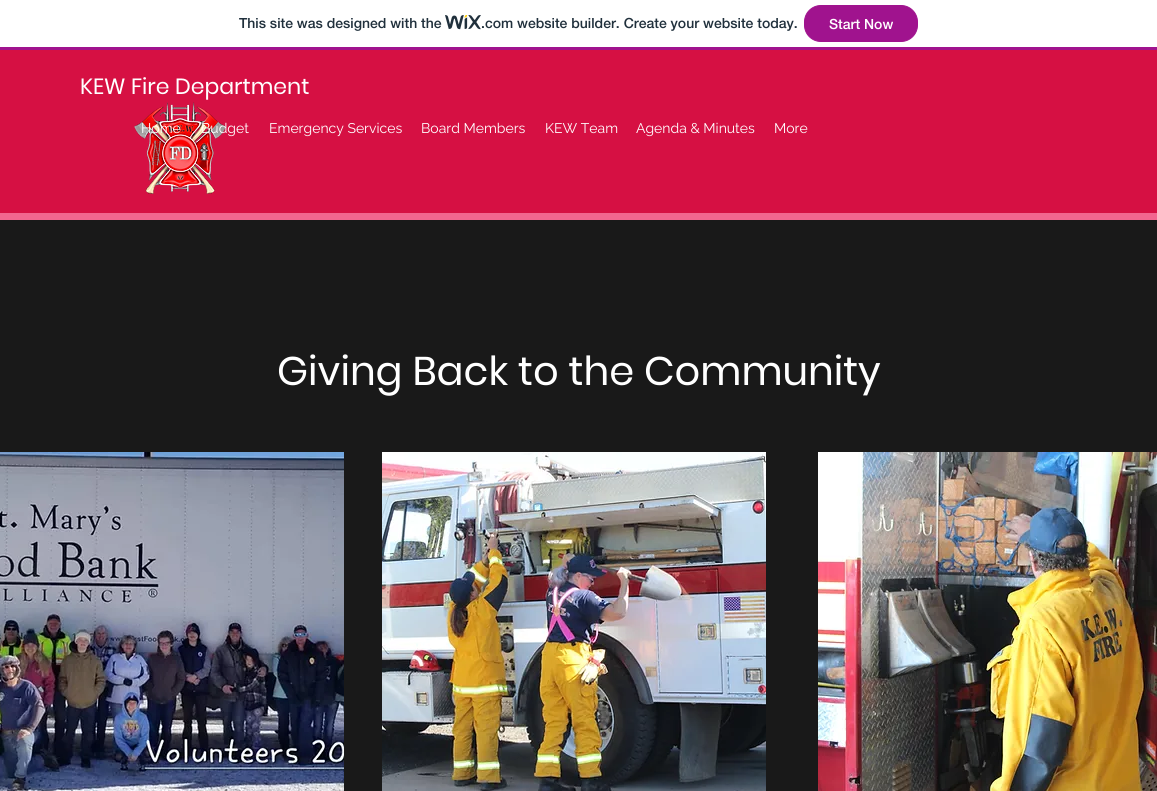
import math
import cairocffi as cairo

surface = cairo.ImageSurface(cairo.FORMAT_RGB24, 1157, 791)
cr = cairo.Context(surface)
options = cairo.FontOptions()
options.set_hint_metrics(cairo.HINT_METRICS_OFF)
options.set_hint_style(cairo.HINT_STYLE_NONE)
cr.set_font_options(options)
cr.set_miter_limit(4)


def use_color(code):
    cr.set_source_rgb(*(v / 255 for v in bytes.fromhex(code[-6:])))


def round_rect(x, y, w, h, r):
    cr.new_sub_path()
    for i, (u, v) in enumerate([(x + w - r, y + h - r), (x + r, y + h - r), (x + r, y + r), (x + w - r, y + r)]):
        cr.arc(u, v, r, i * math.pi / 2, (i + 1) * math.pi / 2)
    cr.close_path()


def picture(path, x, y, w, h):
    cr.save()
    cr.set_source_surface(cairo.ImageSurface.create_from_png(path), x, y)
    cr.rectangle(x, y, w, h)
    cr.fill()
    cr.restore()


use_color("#ffffff")
cr.paint()
use_color("#a0138e")
cr.rectangle(0, 47, 1157, 3)
cr.fill()
cr.select_font_face("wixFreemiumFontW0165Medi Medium")
cr.set_font_size(14)
use_color("#20303c")
cr.move_to(239, 28)
cr.show_text("This site was designed with the")
picture("img1.png", 445, 15, 36, 15)
cr.move_to(481, 28)
cr.show_text(".com website builder. Create your website today.")
use_color("#a0138e")
round_rect(804.5, 5.5, 113, 36, 16.5)
cr.fill_preserve()
cr.set_line_width(1)
cr.stroke()
use_color("#ffffff")
cr.move_to(829, 29)
cr.show_text("Start Now")
use_color("#d61043")
cr.rectangle(0, 50, 1157, 163)
cr.fill()
use_color("#f2668f")
cr.rectangle(0, 213, 1157, 7)
cr.fill()
cr.select_font_face("Poppins")
cr.set_font_size(22)
use_color("#ffffff")
cr.move_to(80, 94)
cr.show_text("KEW Fire Department")
picture("img2.png", 134, 102, 92, 92)
cr.select_font_face("Raleway")
cr.set_font_size(14)
cr.move_to(141, 133)
cr.show_text("Home")
cr.move_to(201, 133)
cr.show_text("Budget")
cr.move_to(269, 133)
cr.show_text("Emergency Services")
cr.move_to(421, 133)
cr.show_text("Board Members")
cr.move_to(545, 133)
cr.show_text("KEW Team")
cr.move_to(636, 133)
cr.show_text("Agenda & Minutes")
cr.move_to(774, 133)
cr.show_text("More")
use_color("#191919")
cr.rectangle(0, 220, 1157, 571)
cr.fill()
cr.select_font_face("Poppins")
cr.set_font_size(40)
use_color("#ffffff")
cr.move_to(277, 385)
cr.show_text("Giving Back to the Community")
picture("img3.png", 0, 452, 344, 339)
picture("img4.png", 382, 452, 384, 339)
picture("img5.png", 818, 452, 339, 339)
surface.write_to_png("result.png")
